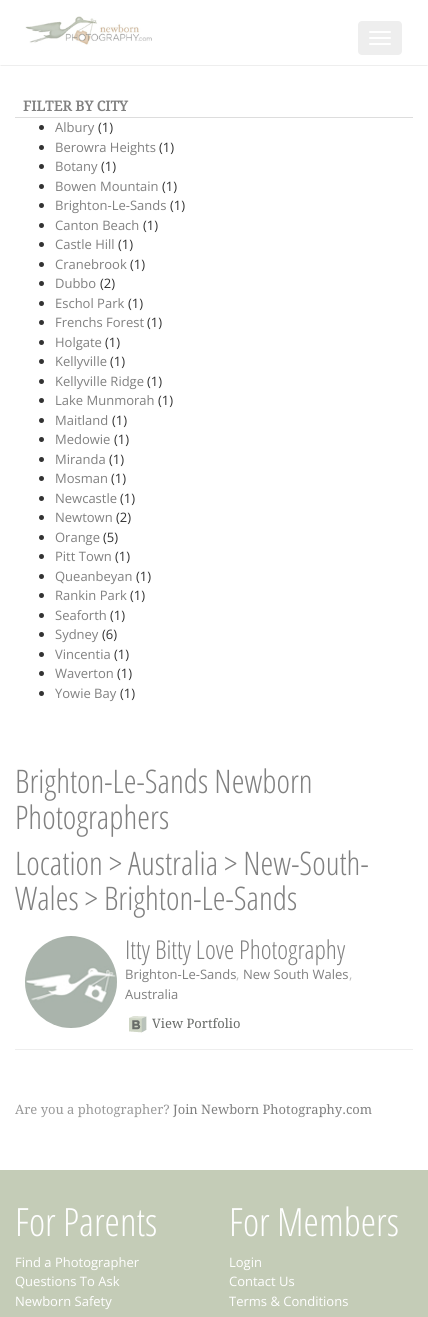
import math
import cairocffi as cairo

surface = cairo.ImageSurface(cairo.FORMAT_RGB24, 428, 1317)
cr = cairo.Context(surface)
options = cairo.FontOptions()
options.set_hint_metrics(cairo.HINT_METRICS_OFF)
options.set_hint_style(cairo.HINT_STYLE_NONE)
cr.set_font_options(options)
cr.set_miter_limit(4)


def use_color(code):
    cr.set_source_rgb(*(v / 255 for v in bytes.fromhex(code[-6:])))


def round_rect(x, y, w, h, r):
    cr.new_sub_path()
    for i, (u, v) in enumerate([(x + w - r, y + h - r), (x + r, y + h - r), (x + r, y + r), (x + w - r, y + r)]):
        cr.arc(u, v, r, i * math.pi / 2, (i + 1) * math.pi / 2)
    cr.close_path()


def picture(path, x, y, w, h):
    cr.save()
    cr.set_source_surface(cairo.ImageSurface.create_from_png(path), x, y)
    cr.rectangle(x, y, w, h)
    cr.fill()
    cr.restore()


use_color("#ffffff")
cr.paint()
use_color("#eeeeee")
cr.new_path()
cr.move_to(428, 66)
cr.line_to(0, 66)
cr.line_to(1, 65)
cr.line_to(427, 65)
cr.close_path()
cr.fill()
picture("img1.png", 25, 16, 127, 29)
round_rect(358, 21, 44, 34, 4)
cr.fill()
use_color("#ffffff")
round_rect(369, 31, 22, 2, 1)
cr.fill()
round_rect(369, 37, 22, 2, 1)
cr.fill()
round_rect(369, 43, 22, 2, 1)
cr.fill()
use_color("#dddddd")
cr.rectangle(15, 117, 398, 1)
cr.fill()
cr.select_font_face("Droid Serif", cairo.FONT_SLANT_NORMAL, cairo.FONT_WEIGHT_BOLD)
cr.set_font_size(14)
use_color("#808080")
cr.move_to(23, 111)
cr.show_text("FILTER BY CITY")
use_color("#333333")
cr.new_path()
cr.arc(41.5, 127.5, 2.5, 0, 2 * math.pi)
cr.fill()
cr.select_font_face("Open Sans")
cr.set_font_size(13)
use_color("#808080")
cr.move_to(55, 132)
cr.show_text("Albury")
use_color("#333333")
cr.move_to(98, 132)
cr.show_text("(1)")
cr.new_path()
cr.arc(41.5, 147.5, 2.5, 0, 2 * math.pi)
cr.fill()
use_color("#808080")
cr.move_to(55, 152)
cr.show_text("Berowra Heights")
use_color("#333333")
cr.move_to(159, 152)
cr.show_text("(1)")
cr.new_path()
cr.arc(41.5, 166.5, 2.5, 0, 2 * math.pi)
cr.fill()
use_color("#808080")
cr.move_to(55, 171)
cr.show_text("Botany")
use_color("#333333")
cr.move_to(101, 171)
cr.show_text("(1)")
cr.new_path()
cr.arc(41.5, 186.5, 2.5, 0, 2 * math.pi)
cr.fill()
use_color("#808080")
cr.move_to(55, 191)
cr.show_text("Bowen Mountain")
use_color("#333333")
cr.move_to(162, 191)
cr.show_text("(1)")
cr.new_path()
cr.arc(41.5, 205.5, 2.5, 0, 2 * math.pi)
cr.fill()
use_color("#808080")
cr.move_to(55, 210)
cr.show_text("Brighton-Le-Sands")
use_color("#333333")
cr.move_to(170, 210)
cr.show_text("(1)")
cr.new_path()
cr.arc(41.5, 225.5, 2.5, 0, 2 * math.pi)
cr.fill()
use_color("#808080")
cr.move_to(55, 230)
cr.show_text("Canton Beach")
use_color("#333333")
cr.move_to(143, 230)
cr.show_text("(1)")
cr.new_path()
cr.arc(41.5, 244.5, 2.5, 0, 2 * math.pi)
cr.fill()
use_color("#808080")
cr.move_to(55, 249)
cr.show_text("Castle Hill")
use_color("#333333")
cr.move_to(118, 249)
cr.show_text("(1)")
cr.new_path()
cr.arc(41.5, 264.5, 2.5, 0, 2 * math.pi)
cr.fill()
use_color("#808080")
cr.move_to(55, 269)
cr.show_text("Cranebrook")
use_color("#333333")
cr.move_to(130, 269)
cr.show_text("(1)")
cr.new_path()
cr.arc(41.5, 283.5, 2.5, 0, 2 * math.pi)
cr.fill()
use_color("#808080")
cr.move_to(55, 288)
cr.show_text("Dubbo")
use_color("#333333")
cr.move_to(100, 288)
cr.show_text("(2)")
cr.new_path()
cr.arc(41.5, 303.5, 2.5, 0, 2 * math.pi)
cr.fill()
use_color("#808080")
cr.move_to(55, 308)
cr.show_text("Eschol Park")
use_color("#333333")
cr.move_to(128, 308)
cr.show_text("(1)")
cr.new_path()
cr.arc(41.5, 322.5, 2.5, 0, 2 * math.pi)
cr.fill()
use_color("#808080")
cr.move_to(55, 327)
cr.show_text("Frenchs Forest")
use_color("#333333")
cr.move_to(147, 327)
cr.show_text("(1)")
cr.new_path()
cr.arc(41.5, 342.5, 2.5, 0, 2 * math.pi)
cr.fill()
use_color("#808080")
cr.move_to(55, 347)
cr.show_text("Holgate")
use_color("#333333")
cr.move_to(105, 347)
cr.show_text("(1)")
cr.new_path()
cr.arc(41.5, 361.5, 2.5, 0, 2 * math.pi)
cr.fill()
use_color("#808080")
cr.move_to(55, 366)
cr.show_text("Kellyville")
use_color("#333333")
cr.move_to(110, 366)
cr.show_text("(1)")
cr.new_path()
cr.arc(41.5, 381.5, 2.5, 0, 2 * math.pi)
cr.fill()
use_color("#808080")
cr.move_to(55, 386)
cr.show_text("Kellyville Ridge")
use_color("#333333")
cr.move_to(147, 386)
cr.show_text("(1)")
cr.new_path()
cr.arc(41.5, 400.5, 2.5, 0, 2 * math.pi)
cr.fill()
use_color("#808080")
cr.move_to(55, 405)
cr.show_text("Lake Munmorah")
use_color("#333333")
cr.move_to(158, 405)
cr.show_text("(1)")
cr.new_path()
cr.arc(41.5, 420.5, 2.5, 0, 2 * math.pi)
cr.fill()
use_color("#808080")
cr.move_to(55, 425)
cr.show_text("Maitland")
use_color("#333333")
cr.move_to(112, 425)
cr.show_text("(1)")
cr.new_path()
cr.arc(41.5, 439.5, 2.5, 0, 2 * math.pi)
cr.fill()
use_color("#808080")
cr.move_to(55, 444)
cr.show_text("Medowie")
use_color("#333333")
cr.move_to(114, 444)
cr.show_text("(1)")
cr.new_path()
cr.arc(41.5, 459.5, 2.5, 0, 2 * math.pi)
cr.fill()
use_color("#808080")
cr.move_to(55, 464)
cr.show_text("Miranda")
use_color("#333333")
cr.move_to(109, 464)
cr.show_text("(1)")
cr.new_path()
cr.arc(41.5, 478.5, 2.5, 0, 2 * math.pi)
cr.fill()
use_color("#808080")
cr.move_to(55, 483)
cr.show_text("Mosman")
use_color("#333333")
cr.move_to(111, 483)
cr.show_text("(1)")
cr.new_path()
cr.arc(41.5, 498.5, 2.5, 0, 2 * math.pi)
cr.fill()
use_color("#808080")
cr.move_to(55, 503)
cr.show_text("Newcastle")
use_color("#333333")
cr.move_to(120, 503)
cr.show_text("(1)")
cr.new_path()
cr.arc(41.5, 517.5, 2.5, 0, 2 * math.pi)
cr.fill()
use_color("#808080")
cr.move_to(55, 522)
cr.show_text("Newtown")
use_color("#333333")
cr.move_to(116, 522)
cr.show_text("(2)")
cr.new_path()
cr.arc(41.5, 537.5, 2.5, 0, 2 * math.pi)
cr.fill()
use_color("#808080")
cr.move_to(55, 542)
cr.show_text("Orange")
use_color("#333333")
cr.move_to(103, 542)
cr.show_text("(5)")
cr.new_path()
cr.arc(41.5, 556.5, 2.5, 0, 2 * math.pi)
cr.fill()
use_color("#808080")
cr.move_to(55, 561)
cr.show_text("Pitt Town")
use_color("#333333")
cr.move_to(115, 561)
cr.show_text("(1)")
cr.new_path()
cr.arc(41.5, 576.5, 2.5, 0, 2 * math.pi)
cr.fill()
use_color("#808080")
cr.move_to(55, 581)
cr.show_text("Queanbeyan")
use_color("#333333")
cr.move_to(136, 581)
cr.show_text("(1)")
cr.new_path()
cr.arc(41.5, 595.5, 2.5, 0, 2 * math.pi)
cr.fill()
use_color("#808080")
cr.move_to(55, 600)
cr.show_text("Rankin Park")
use_color("#333333")
cr.move_to(130, 600)
cr.show_text("(1)")
cr.new_path()
cr.arc(41.5, 615.5, 2.5, 0, 2 * math.pi)
cr.fill()
use_color("#808080")
cr.move_to(55, 620)
cr.show_text("Seaforth")
use_color("#333333")
cr.move_to(110, 620)
cr.show_text("(1)")
cr.new_path()
cr.arc(41.5, 634.5, 2.5, 0, 2 * math.pi)
cr.fill()
use_color("#808080")
cr.move_to(55, 639)
cr.show_text("Sydney")
use_color("#333333")
cr.move_to(102, 639)
cr.show_text("(6)")
cr.new_path()
cr.arc(41.5, 654.5, 2.5, 0, 2 * math.pi)
cr.fill()
use_color("#808080")
cr.move_to(55, 659)
cr.show_text("Vincentia")
use_color("#333333")
cr.move_to(114, 659)
cr.show_text("(1)")
cr.new_path()
cr.arc(41.5, 673.5, 2.5, 0, 2 * math.pi)
cr.fill()
use_color("#808080")
cr.move_to(55, 678)
cr.show_text("Waverton")
use_color("#333333")
cr.move_to(117, 678)
cr.show_text("(1)")
cr.new_path()
cr.arc(41.5, 693.5, 2.5, 0, 2 * math.pi)
cr.fill()
use_color("#808080")
cr.move_to(55, 698)
cr.show_text("Yowie Bay")
use_color("#333333")
cr.move_to(120, 698)
cr.show_text("(1)")
cr.select_font_face("Open Sans Condensed Light")
cr.set_font_size(32.5)
use_color("#808080")
cr.move_to(15, 793)
cr.show_text("Brighton-Le-Sands Newborn")
cr.move_to(15, 829)
cr.show_text("Photographers")
cr.move_to(15, 875)
cr.show_text("Location > Australia > New-South-")
cr.move_to(15, 910)
cr.show_text("Wales > Brighton-Le-Sands")
use_color("#eeeeee")
cr.rectangle(15, 1049, 398, 1)
cr.fill()
picture("img2.png", 25, 936, 92, 92)
cr.set_font_size(26)
use_color("#808080")
cr.move_to(125, 959)
cr.show_text("Itty Bitty Love Photography")
cr.select_font_face("Open Sans")
cr.set_font_size(13)
cr.move_to(125, 979)
cr.show_text("Brighton-Le-Sands")
use_color("#bbbbbb")
cr.move_to(236, 979)
cr.show_text(",")
use_color("#808080")
cr.move_to(243, 979)
cr.show_text("New South Wales")
use_color("#bbbbbb")
cr.move_to(349, 979)
cr.show_text(",")
use_color("#808080")
cr.move_to(125, 999)
cr.show_text("Australia")
picture("img3.png", 129, 1016, 18, 17)
cr.select_font_face("Droid Serif")
use_color("#676a67")
cr.move_to(152, 1028)
cr.show_text("View Portfolio")
use_color("#999999")
cr.move_to(15, 1114)
cr.show_text("Are you a photographer?")
use_color("#808080")
cr.move_to(173, 1114)
cr.show_text("Join Newborn Photography.com")
use_color("#c4ccb7")
cr.rectangle(0, 1170, 428, 147)
cr.fill()
cr.select_font_face("Open Sans Condensed Light")
cr.set_font_size(39)
use_color("#ffffff")
cr.move_to(15, 1236)
cr.show_text("For Parents")
cr.select_font_face("Open Sans")
cr.set_font_size(13)
cr.move_to(15, 1267)
cr.show_text("Find a Photographer")
cr.move_to(15, 1286)
cr.show_text("Questions To Ask")
cr.move_to(15, 1306)
cr.show_text("Newborn Safety")
cr.select_font_face("Open Sans Condensed Light")
cr.set_font_size(39)
cr.move_to(229, 1236)
cr.show_text("For Members")
cr.select_font_face("Open Sans")
cr.set_font_size(13)
cr.move_to(229, 1267)
cr.show_text("Login")
cr.move_to(229, 1286)
cr.show_text("Contact Us")
cr.move_to(229, 1306)
cr.show_text("Terms & Conditions")
surface.write_to_png("result.png")
